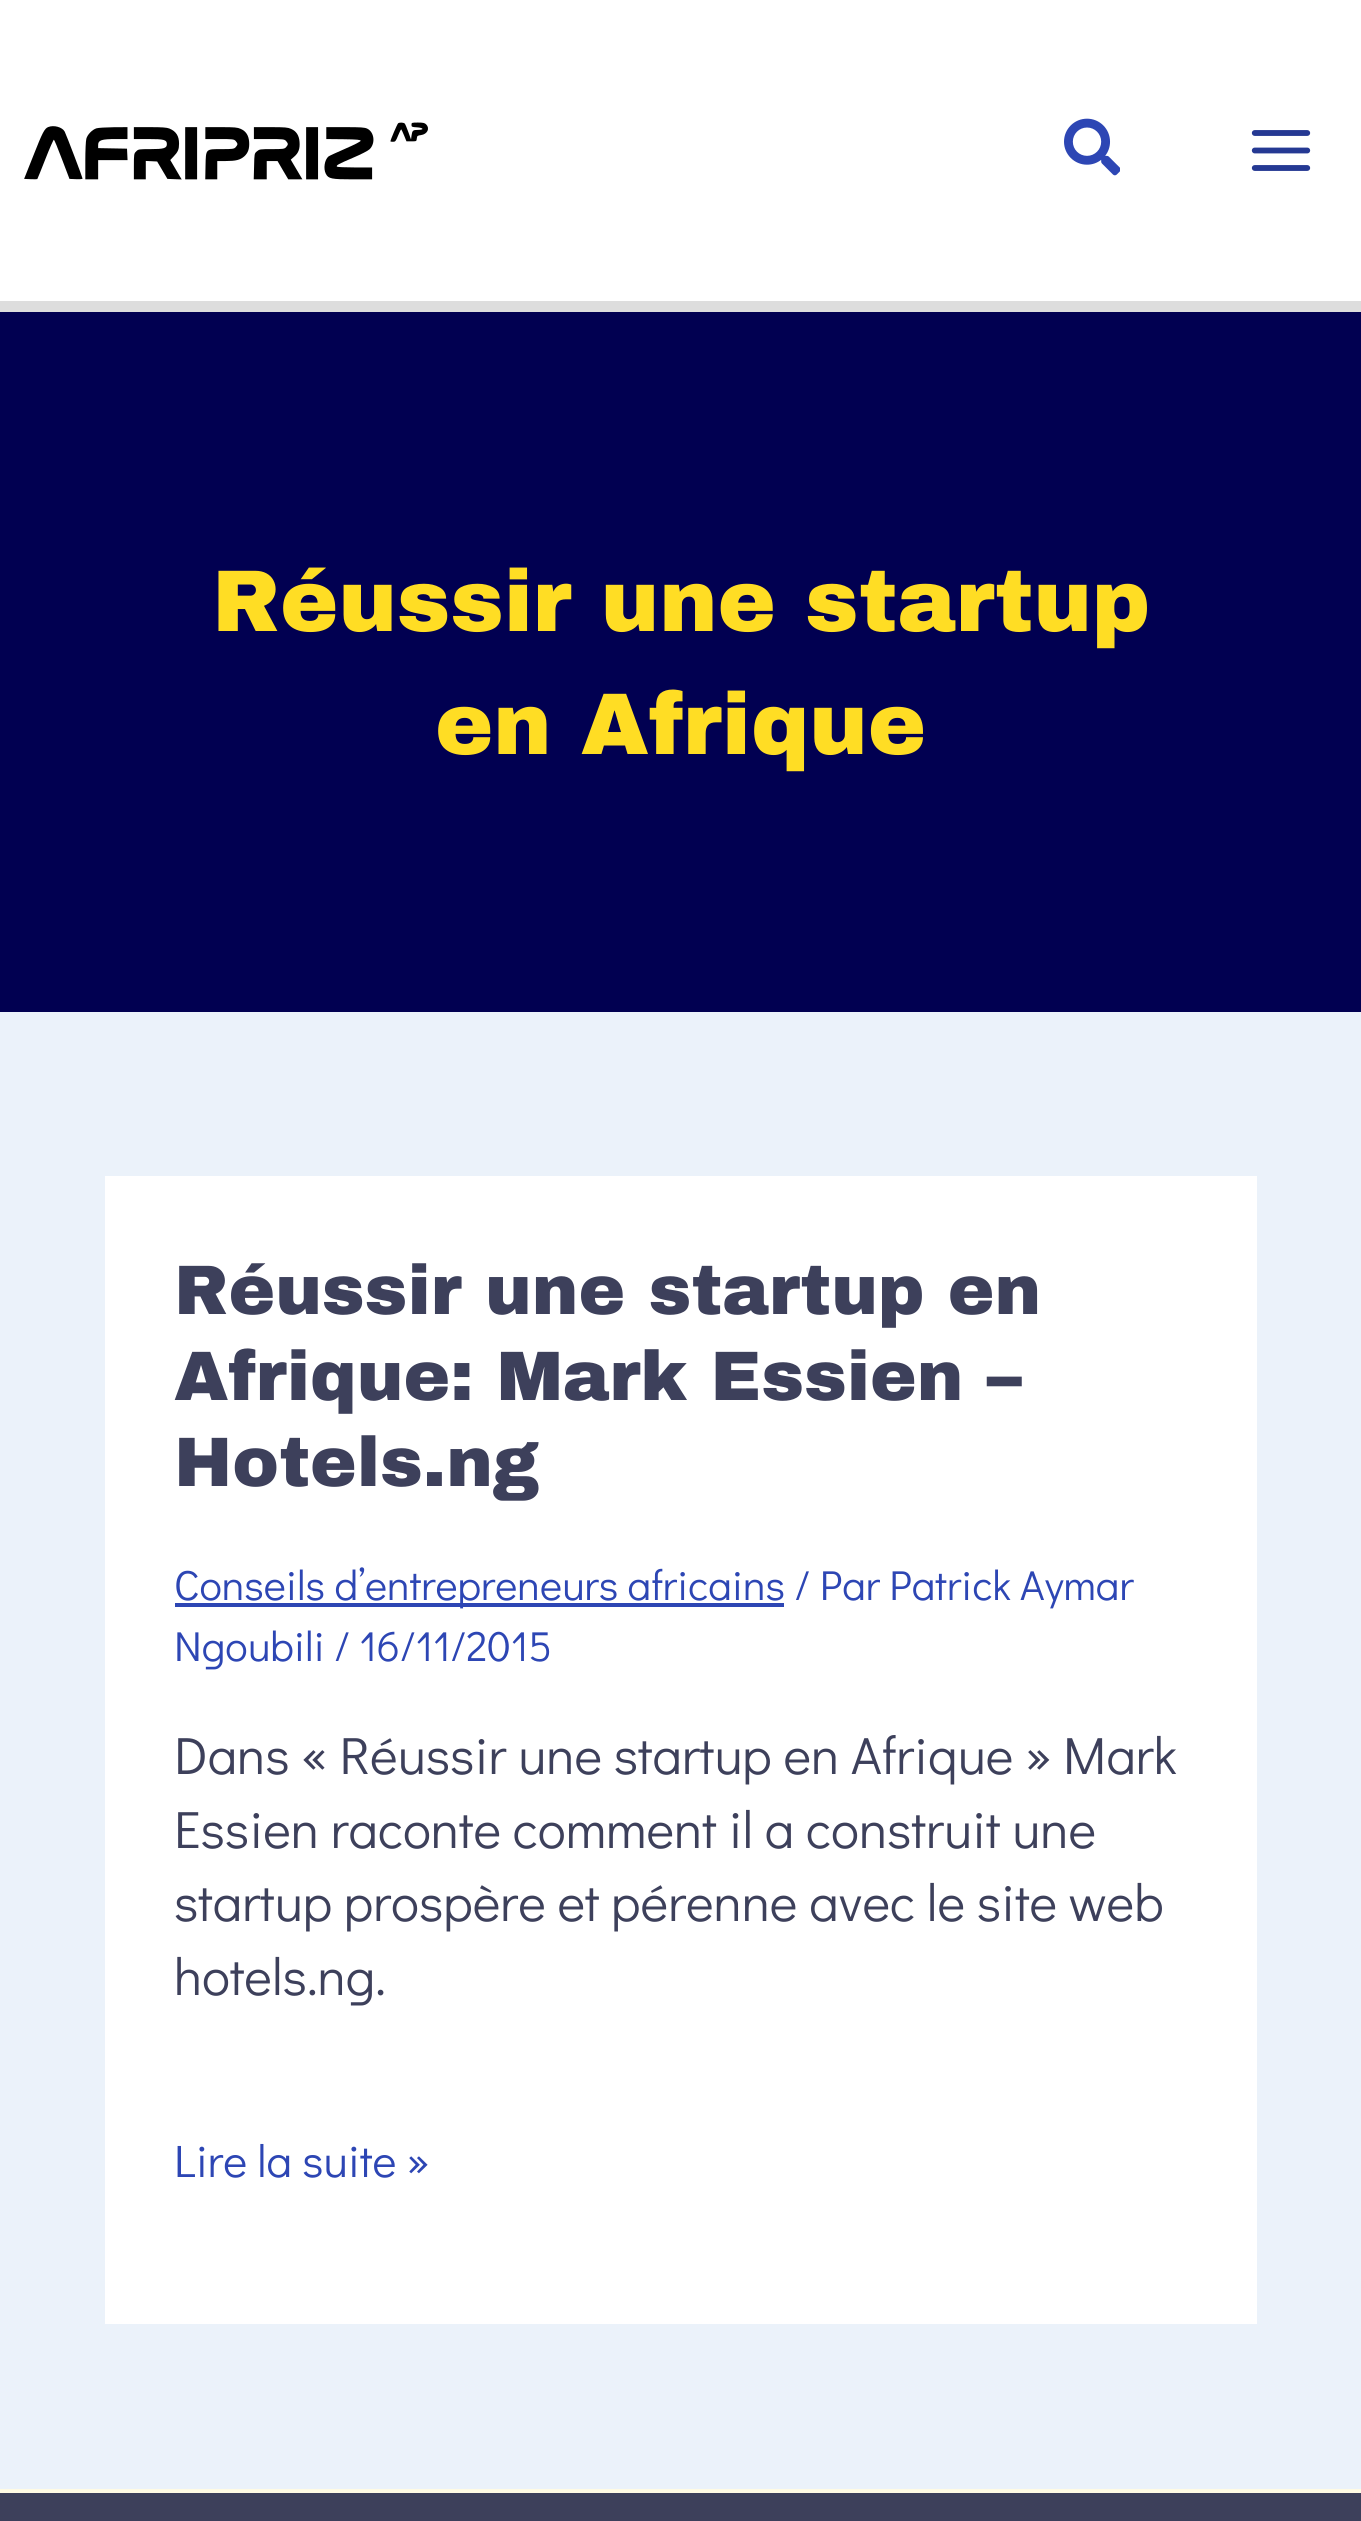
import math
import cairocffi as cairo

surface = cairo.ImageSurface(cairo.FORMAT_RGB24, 1361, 2521)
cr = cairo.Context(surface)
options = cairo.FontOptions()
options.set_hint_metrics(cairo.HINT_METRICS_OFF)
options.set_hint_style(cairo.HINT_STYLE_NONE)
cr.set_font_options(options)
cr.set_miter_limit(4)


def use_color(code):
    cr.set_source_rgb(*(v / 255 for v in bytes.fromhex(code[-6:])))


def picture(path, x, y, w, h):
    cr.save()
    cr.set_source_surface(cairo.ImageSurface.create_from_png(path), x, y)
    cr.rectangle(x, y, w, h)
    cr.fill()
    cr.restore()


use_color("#ebf2fa")
cr.paint()
use_color("#ffffff")
cr.rectangle(0, 0, 1361, 301)
cr.fill()
use_color("#dddddd")
cr.rectangle(0, 301, 1361, 11)
cr.fill()
picture("img1.png", 24, 122, 404, 58)
picture("img2.png", 1064, 118, 56, 58)
picture("img3.png", 1251, 130, 60, 41)
use_color("#010051")
cr.rectangle(0, 312, 1361, 700)
cr.fill()
cr.select_font_face("Archivo Black Black")
cr.set_font_size(87.5)
use_color("#ffdd24")
cr.move_to(212, 631)
cr.show_text("Réussir une startup")
cr.move_to(435, 754)
cr.show_text("en Afrique")
use_color("#ffffff")
cr.rectangle(105, 1176, 1152, 1148)
cr.fill()
cr.set_font_size(70)
use_color("#3d405b")
cr.move_to(174, 1314)
cr.show_text("Réussir une startup en")
cr.move_to(174, 1400)
cr.show_text("Afrique: Mark Essien –")
cr.move_to(174, 1486)
cr.show_text("Hotels.ng")
use_color("#2d46b4")
cr.rectangle(175, 1603, 609, 4)
cr.fill()
cr.select_font_face("Didact Gothic")
cr.set_font_size(42)
cr.move_to(174, 1600)
cr.show_text("Conseils d’entrepreneurs africains / Par Patrick Aymar")
cr.move_to(174, 1661)
cr.show_text("Ngoubili / 16/11/2015")
cr.set_font_size(52.5)
use_color("#3d405b")
cr.move_to(174, 1774)
cr.show_text("Dans « Réussir une startup en Afrique » Mark")
cr.move_to(174, 1848)
cr.show_text("Essien raconte comment il a construit une")
cr.move_to(174, 1921)
cr.show_text("startup prospère et pérenne avec le site web")
cr.move_to(174, 1995)
cr.show_text("hotels.ng.")
cr.set_font_size(45.5)
use_color("#2d46b4")
cr.move_to(174, 2177)
cr.show_text("Lire la suite »")
use_color("#3d405b")
cr.rectangle(0, 2493, 1361, 28)
cr.fill()
use_color("#fffbe4")
cr.rectangle(0, 2489, 1361, 4)
cr.fill()
surface.write_to_png("result.png")
